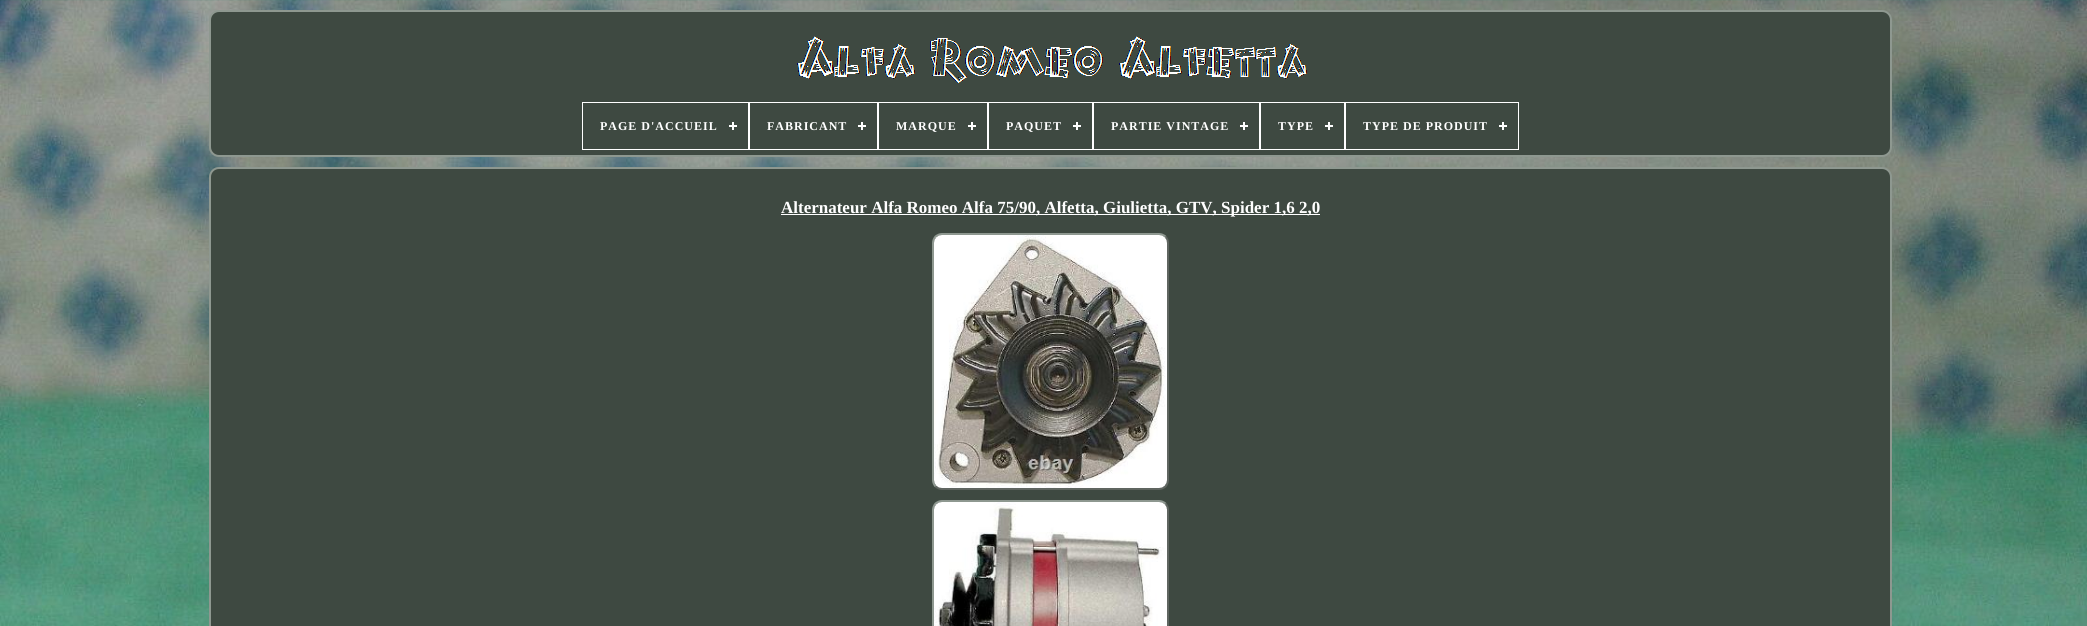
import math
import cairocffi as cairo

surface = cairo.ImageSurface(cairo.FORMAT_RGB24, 2087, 626)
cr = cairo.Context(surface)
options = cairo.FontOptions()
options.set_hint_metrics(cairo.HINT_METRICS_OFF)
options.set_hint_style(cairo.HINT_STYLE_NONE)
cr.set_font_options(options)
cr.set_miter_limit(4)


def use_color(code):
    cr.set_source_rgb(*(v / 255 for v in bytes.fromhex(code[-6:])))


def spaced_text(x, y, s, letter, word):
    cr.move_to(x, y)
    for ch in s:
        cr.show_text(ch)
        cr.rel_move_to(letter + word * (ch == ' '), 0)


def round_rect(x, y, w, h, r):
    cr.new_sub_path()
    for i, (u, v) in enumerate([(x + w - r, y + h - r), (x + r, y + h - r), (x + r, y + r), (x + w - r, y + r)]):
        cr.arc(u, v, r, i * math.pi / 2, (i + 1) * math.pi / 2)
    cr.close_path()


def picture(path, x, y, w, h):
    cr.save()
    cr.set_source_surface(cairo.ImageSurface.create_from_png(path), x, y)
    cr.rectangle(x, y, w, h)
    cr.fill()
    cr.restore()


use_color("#ffffff")
cr.paint()
picture("img1.png", 0, 0, 2087, 626)
use_color("#3e4941")
round_rect(210, 11, 1681, 145, 9)
cr.fill_preserve()
use_color("#8e9890")
cr.stroke()
picture("img2.png", 797, 36, 510, 47)
cr.rectangle(582.5, 102.5, 166, 47)
use_color("#ffffff")
cr.set_line_width(1)
cr.stroke()
cr.select_font_face("Liberation Serif", cairo.FONT_SLANT_NORMAL, cairo.FONT_WEIGHT_BOLD)
cr.set_font_size(12)
spaced_text(600, 130, "PAGE D'ACCUEIL", 1, 0)
cr.rectangle(732, 122, 2, 8)
cr.fill()
cr.rectangle(729, 125, 8, 2)
cr.fill()
cr.rectangle(749.5, 102.5, 128, 47)
cr.stroke()
spaced_text(767, 130, "FABRICANT", 1, 0)
cr.rectangle(861, 122, 2, 8)
cr.fill()
cr.rectangle(858, 125, 8, 2)
cr.fill()
cr.rectangle(878.5, 102.5, 109, 47)
cr.stroke()
spaced_text(896, 130, "MARQUE", 1, 0)
cr.rectangle(971, 122, 2, 8)
cr.fill()
cr.rectangle(968, 125, 8, 2)
cr.fill()
cr.rectangle(988.5, 102.5, 104, 47)
cr.stroke()
spaced_text(1006, 130, "PAQUET", 1, 0)
cr.rectangle(1076, 122, 2, 8)
cr.fill()
cr.rectangle(1073, 125, 8, 2)
cr.fill()
cr.rectangle(1093.5, 102.5, 166, 47)
cr.stroke()
spaced_text(1111, 130, "PARTIE VINTAGE", 1, 0)
cr.rectangle(1243, 122, 2, 8)
cr.fill()
cr.rectangle(1240, 125, 8, 2)
cr.fill()
cr.rectangle(1260.5, 102.5, 84, 47)
cr.stroke()
spaced_text(1278, 130, "TYPE", 1, 0)
cr.rectangle(1328, 122, 2, 8)
cr.fill()
cr.rectangle(1325, 125, 8, 2)
cr.fill()
cr.rectangle(1345.5, 102.5, 173, 47)
cr.stroke()
spaced_text(1363, 130, "TYPE DE PRODUIT", 1, 0)
cr.rectangle(1502, 122, 2, 8)
cr.fill()
cr.rectangle(1499, 125, 8, 2)
cr.fill()
use_color("#3e4941")
round_rect(210, 168, 1681, 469, 9)
cr.fill_preserve()
use_color("#8e9890")
cr.set_line_width(2)
cr.stroke()
use_color("#ffffff")
cr.rectangle(781, 214, 539, 1)
cr.fill()
cr.set_font_size(17)
cr.move_to(781, 213)
cr.show_text("Alternateur Alfa Romeo Alfa 75/90, Alfetta, Giulietta, GTV, Spider 1,6 2,0")
cr.new_path()
cr.move_to(1165.5, 236.5)
cr.curve_to(1167, 238.5, 1168, 240.5, 1168, 243)
cr.line_to(1168, 480)
cr.curve_to(1168, 482.5, 1167, 484.5, 1165.5, 486.5)
cr.curve_to(1163.5, 488, 1161.5, 489, 1159, 489)
cr.line_to(942, 489)
cr.curve_to(939.5, 489, 937.5, 488, 935.5, 486.5)
use_color("#5f6560")
cr.stroke()
cr.new_path()
cr.move_to(935.5, 486.5)
cr.curve_to(934, 484.5, 933, 482.5, 933, 480)
cr.line_to(933, 243)
cr.curve_to(933, 240.5, 934, 238.5, 935.5, 236.5)
cr.curve_to(937.5, 235, 939.5, 234, 942, 234)
cr.line_to(1159, 234)
cr.curve_to(1161.5, 234, 1163.5, 235, 1165.5, 236.5)
use_color("#8e9890")
cr.stroke()
picture("img3.png", 934, 235, 233, 253)
cr.new_path()
cr.move_to(1165.5, 503.5)
cr.curve_to(1167, 505.5, 1168, 507.5, 1168, 510)
cr.line_to(1168, 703)
cr.curve_to(1168, 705.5, 1167, 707.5, 1165.5, 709.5)
cr.curve_to(1163.5, 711, 1161.5, 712, 1159, 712)
cr.line_to(942, 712)
cr.curve_to(939.5, 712, 937.5, 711, 935.5, 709.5)
use_color("#5f6560")
cr.stroke()
cr.new_path()
cr.move_to(935.5, 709.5)
cr.curve_to(934, 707.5, 933, 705.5, 933, 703)
cr.line_to(933, 510)
cr.curve_to(933, 507.5, 934, 505.5, 935.5, 503.5)
cr.curve_to(937.5, 502, 939.5, 501, 942, 501)
cr.line_to(1159, 501)
cr.curve_to(1161.5, 501, 1163.5, 502, 1165.5, 503.5)
use_color("#8e9890")
cr.stroke()
picture("img4.png", 934, 502, 233, 124)
surface.write_to_png("result.png")
